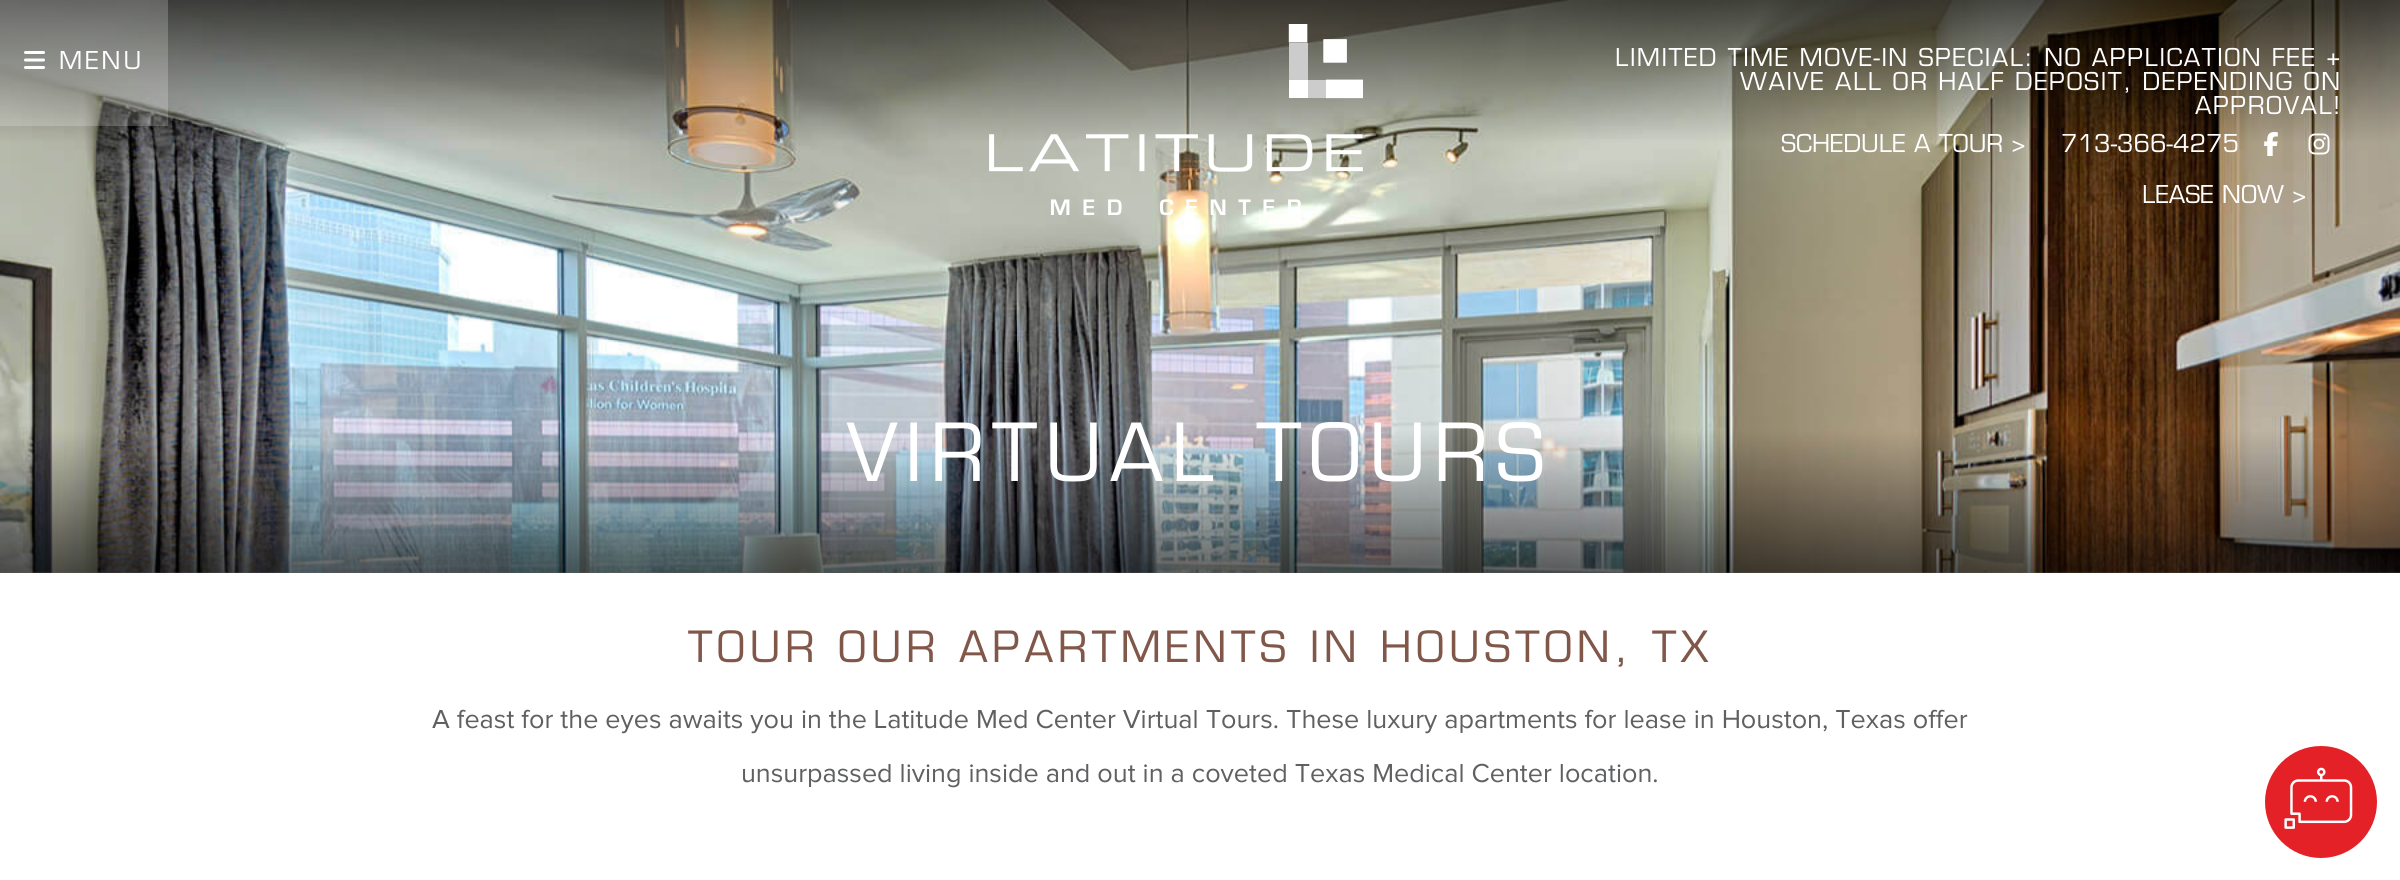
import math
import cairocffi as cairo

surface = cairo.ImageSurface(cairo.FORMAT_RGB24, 2400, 880)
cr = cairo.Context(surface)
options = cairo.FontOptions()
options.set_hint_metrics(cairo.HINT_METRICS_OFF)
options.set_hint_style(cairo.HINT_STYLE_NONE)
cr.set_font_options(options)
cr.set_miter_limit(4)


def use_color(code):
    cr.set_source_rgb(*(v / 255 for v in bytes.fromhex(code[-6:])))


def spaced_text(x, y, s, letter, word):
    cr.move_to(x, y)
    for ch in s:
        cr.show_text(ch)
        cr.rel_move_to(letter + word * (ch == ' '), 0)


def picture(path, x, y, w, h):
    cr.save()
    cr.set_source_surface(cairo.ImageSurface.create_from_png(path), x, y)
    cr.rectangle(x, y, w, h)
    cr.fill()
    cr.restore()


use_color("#ffffff")
cr.paint()
picture("img5.png", 0, 0, 2400, 573)
gradient = cairo.LinearGradient(1200, 0, 1200, 573)
gradient.add_color_stop_rgba(0, 0, 0, 0, 0.65)
gradient.add_color_stop_rgba(0.25, 0, 0, 0, 0)
gradient.add_color_stop_rgba(0.75, 0, 0, 0, 0)
gradient.add_color_stop_rgba(1, 0, 0, 0, 0.6)
cr.set_source(gradient)
cr.rectangle(0, 0, 2400, 573)
cr.fill()
picture("img1.png", 989, 24, 374, 191)
cr.set_source_rgba(1, 1, 1, 0.2)
cr.rectangle(0, 0, 168, 126)
cr.fill()
picture("img2.png", 24, 51, 21, 18)
cr.select_font_face("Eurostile")
cr.set_font_size(24)
use_color("#ffffff")
spaced_text(59, 69, "MENU", 3, 0)
spaced_text(1615, 66, "LIMITED TIME MOVE-IN SPECIAL: NO APPLICATION FEE +", 1.5, 0)
spaced_text(1740, 90, "WAIVE ALL OR HALF DEPOSIT, DEPENDING ON", 1.5, 0)
spaced_text(2195, 114, "APPROVAL!", 1.5, 0)
cr.move_to(1781, 152)
cr.show_text("SCHEDULE A TOUR >")
cr.move_to(2061, 152)
cr.show_text("713-366-4275")
picture("img3.png", 2264, 132, 14, 24)
picture("img4.png", 2308, 133, 22, 22)
cr.move_to(2142, 203)
cr.show_text("LEASE NOW >")
cr.set_font_size(78)
spaced_text(847, 481, "VIRTUAL TOURS", 7.5, 0)
cr.set_font_size(42)
use_color("#805749")
spaced_text(688, 662, "TOUR OUR APARTMENTS IN HOUSTON, TX", 4.5, 0)
cr.select_font_face("Proxima Nova")
cr.set_font_size(27)
use_color("#5f6062")
cr.move_to(432, 728)
cr.show_text("A feast for the eyes awaits you in the Latitude Med Center Virtual Tours. These luxury apartments for lease in Houston, Texas offer")
cr.move_to(741, 782)
cr.show_text("unsurpassed living inside and out in a coveted Texas Medical Center location.")
picture("img6.png", 2265, 746, 112, 112)
surface.write_to_png("result.png")
